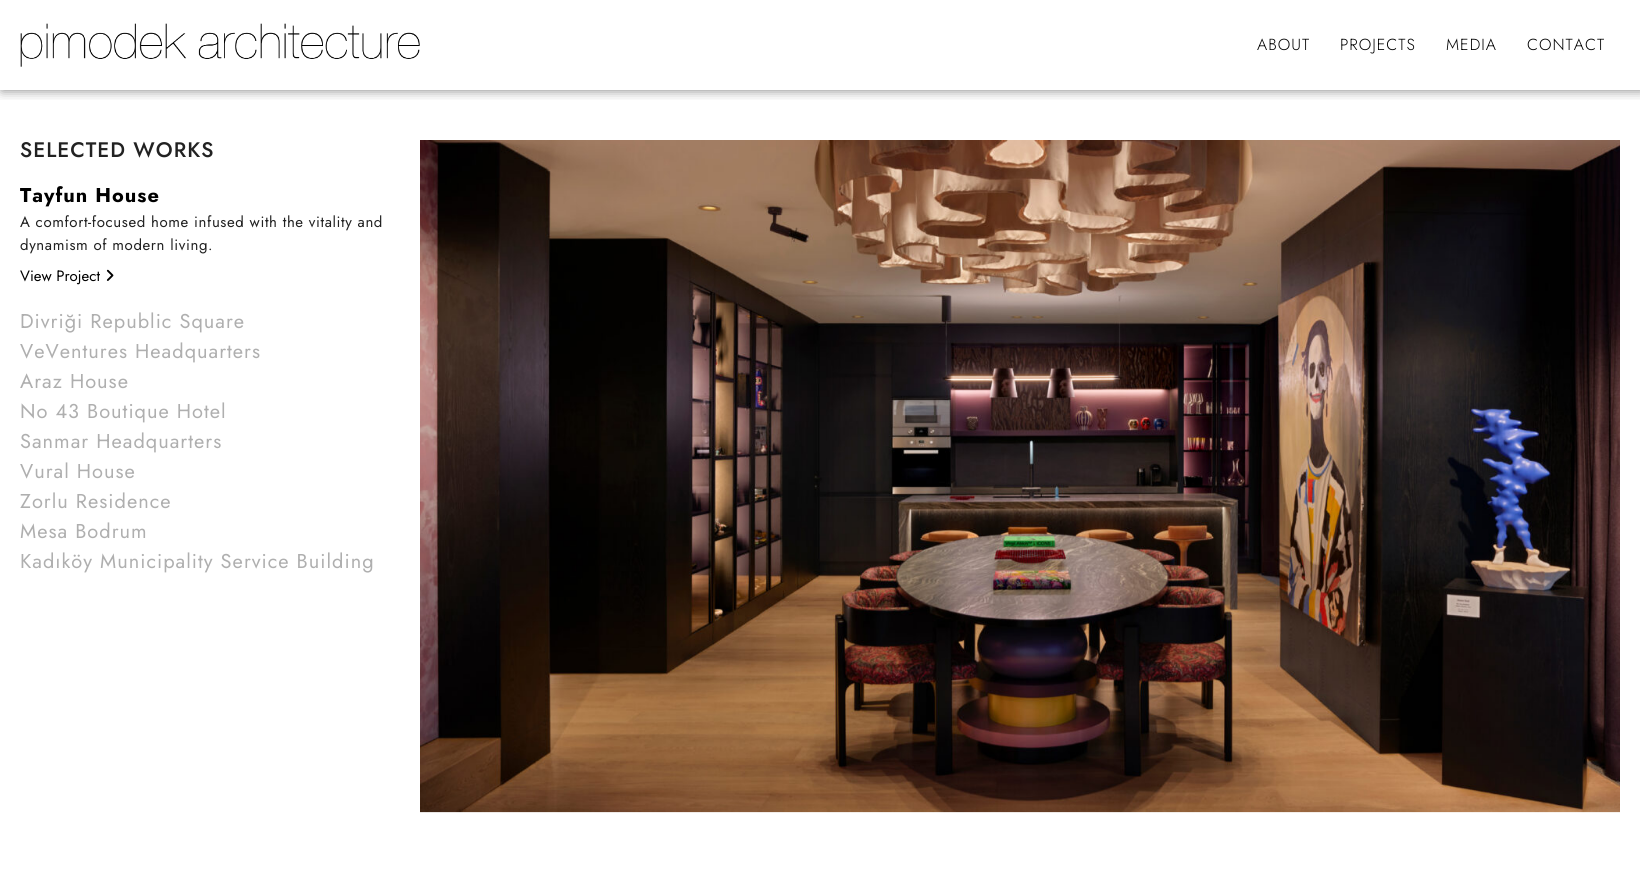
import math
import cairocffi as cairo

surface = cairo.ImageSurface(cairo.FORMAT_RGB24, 1640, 872)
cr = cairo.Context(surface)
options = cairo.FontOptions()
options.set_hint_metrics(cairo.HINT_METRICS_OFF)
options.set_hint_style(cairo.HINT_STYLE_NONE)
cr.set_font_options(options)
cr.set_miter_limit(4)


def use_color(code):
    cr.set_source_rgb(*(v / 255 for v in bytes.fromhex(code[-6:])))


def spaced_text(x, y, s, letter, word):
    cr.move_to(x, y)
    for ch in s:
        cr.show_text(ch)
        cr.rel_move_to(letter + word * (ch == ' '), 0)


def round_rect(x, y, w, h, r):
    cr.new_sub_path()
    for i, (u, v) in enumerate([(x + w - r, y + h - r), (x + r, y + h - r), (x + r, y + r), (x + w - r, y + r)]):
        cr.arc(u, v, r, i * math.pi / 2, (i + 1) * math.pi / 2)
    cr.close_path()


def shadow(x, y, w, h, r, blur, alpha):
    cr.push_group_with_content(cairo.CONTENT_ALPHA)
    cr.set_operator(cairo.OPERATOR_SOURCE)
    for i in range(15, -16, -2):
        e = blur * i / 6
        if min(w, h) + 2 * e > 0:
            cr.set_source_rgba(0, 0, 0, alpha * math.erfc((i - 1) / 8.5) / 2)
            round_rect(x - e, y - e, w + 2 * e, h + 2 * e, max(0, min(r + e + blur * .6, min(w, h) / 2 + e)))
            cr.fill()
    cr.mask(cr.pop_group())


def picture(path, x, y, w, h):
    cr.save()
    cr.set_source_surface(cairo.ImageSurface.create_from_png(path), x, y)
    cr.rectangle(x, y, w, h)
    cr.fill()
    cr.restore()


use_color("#ffffff")
cr.paint()
cr.save()
cr.rectangle(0, 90, 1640, 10)
cr.clip()
use_color("#000000")
shadow(2, 0, 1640, 90, 0, 6, 0.5)
cr.restore()
picture("img1.png", 20, 23, 400, 44)
cr.select_font_face("Jost Light")
cr.set_font_size(16)
use_color("#000000")
spaced_text(1257, 50, "ABOUT", 1, 0)
spaced_text(1340, 50, "PROJECTS", 1, 0)
spaced_text(1446, 50, "MEDIA", 1, 0)
spaced_text(1527, 50, "CONTACT", 1, 0)
cr.select_font_face("Jost Medium")
cr.set_font_size(21)
use_color("#222222")
spaced_text(20, 157, "SELECTED WORKS", 1, 0)
cr.select_font_face("Jost", cairo.FONT_SLANT_NORMAL, cairo.FONT_WEIGHT_BOLD)
cr.set_font_size(20)
use_color("#000000")
spaced_text(20, 202, "Tayfun House", 1, 0)
cr.select_font_face("Jost")
cr.set_font_size(15)
use_color("#222222")
spaced_text(20, 227, "A comfort-focused home infused with the vitality and", 0.6, 0)
spaced_text(20, 250, "dynamism of modern living.", 0.6, 0)
use_color("#000000")
cr.move_to(20, 281)
cr.show_text("View Project")
picture("img2.png", 106, 269, 8, 12)
cr.set_font_size(20)
use_color("#afafaf")
spaced_text(20, 328, "Divriği Republic Square", 1, 0)
spaced_text(20, 358, "VeVentures Headquarters", 1, 0)
spaced_text(20, 388, "Araz House", 1, 0)
spaced_text(20, 418, "No 43 Boutique Hotel", 1, 0)
spaced_text(20, 448, "Sanmar Headquarters", 1, 0)
spaced_text(20, 478, "Vural House", 1, 0)
spaced_text(20, 508, "Zorlu Residence", 1, 0)
spaced_text(20, 538, "Mesa Bodrum", 1, 0)
spaced_text(20, 568, "Kadıköy Municipality Service Building", 1, 0)
picture("img3.png", 420, 140, 1200, 673)
surface.write_to_png("result.png")
